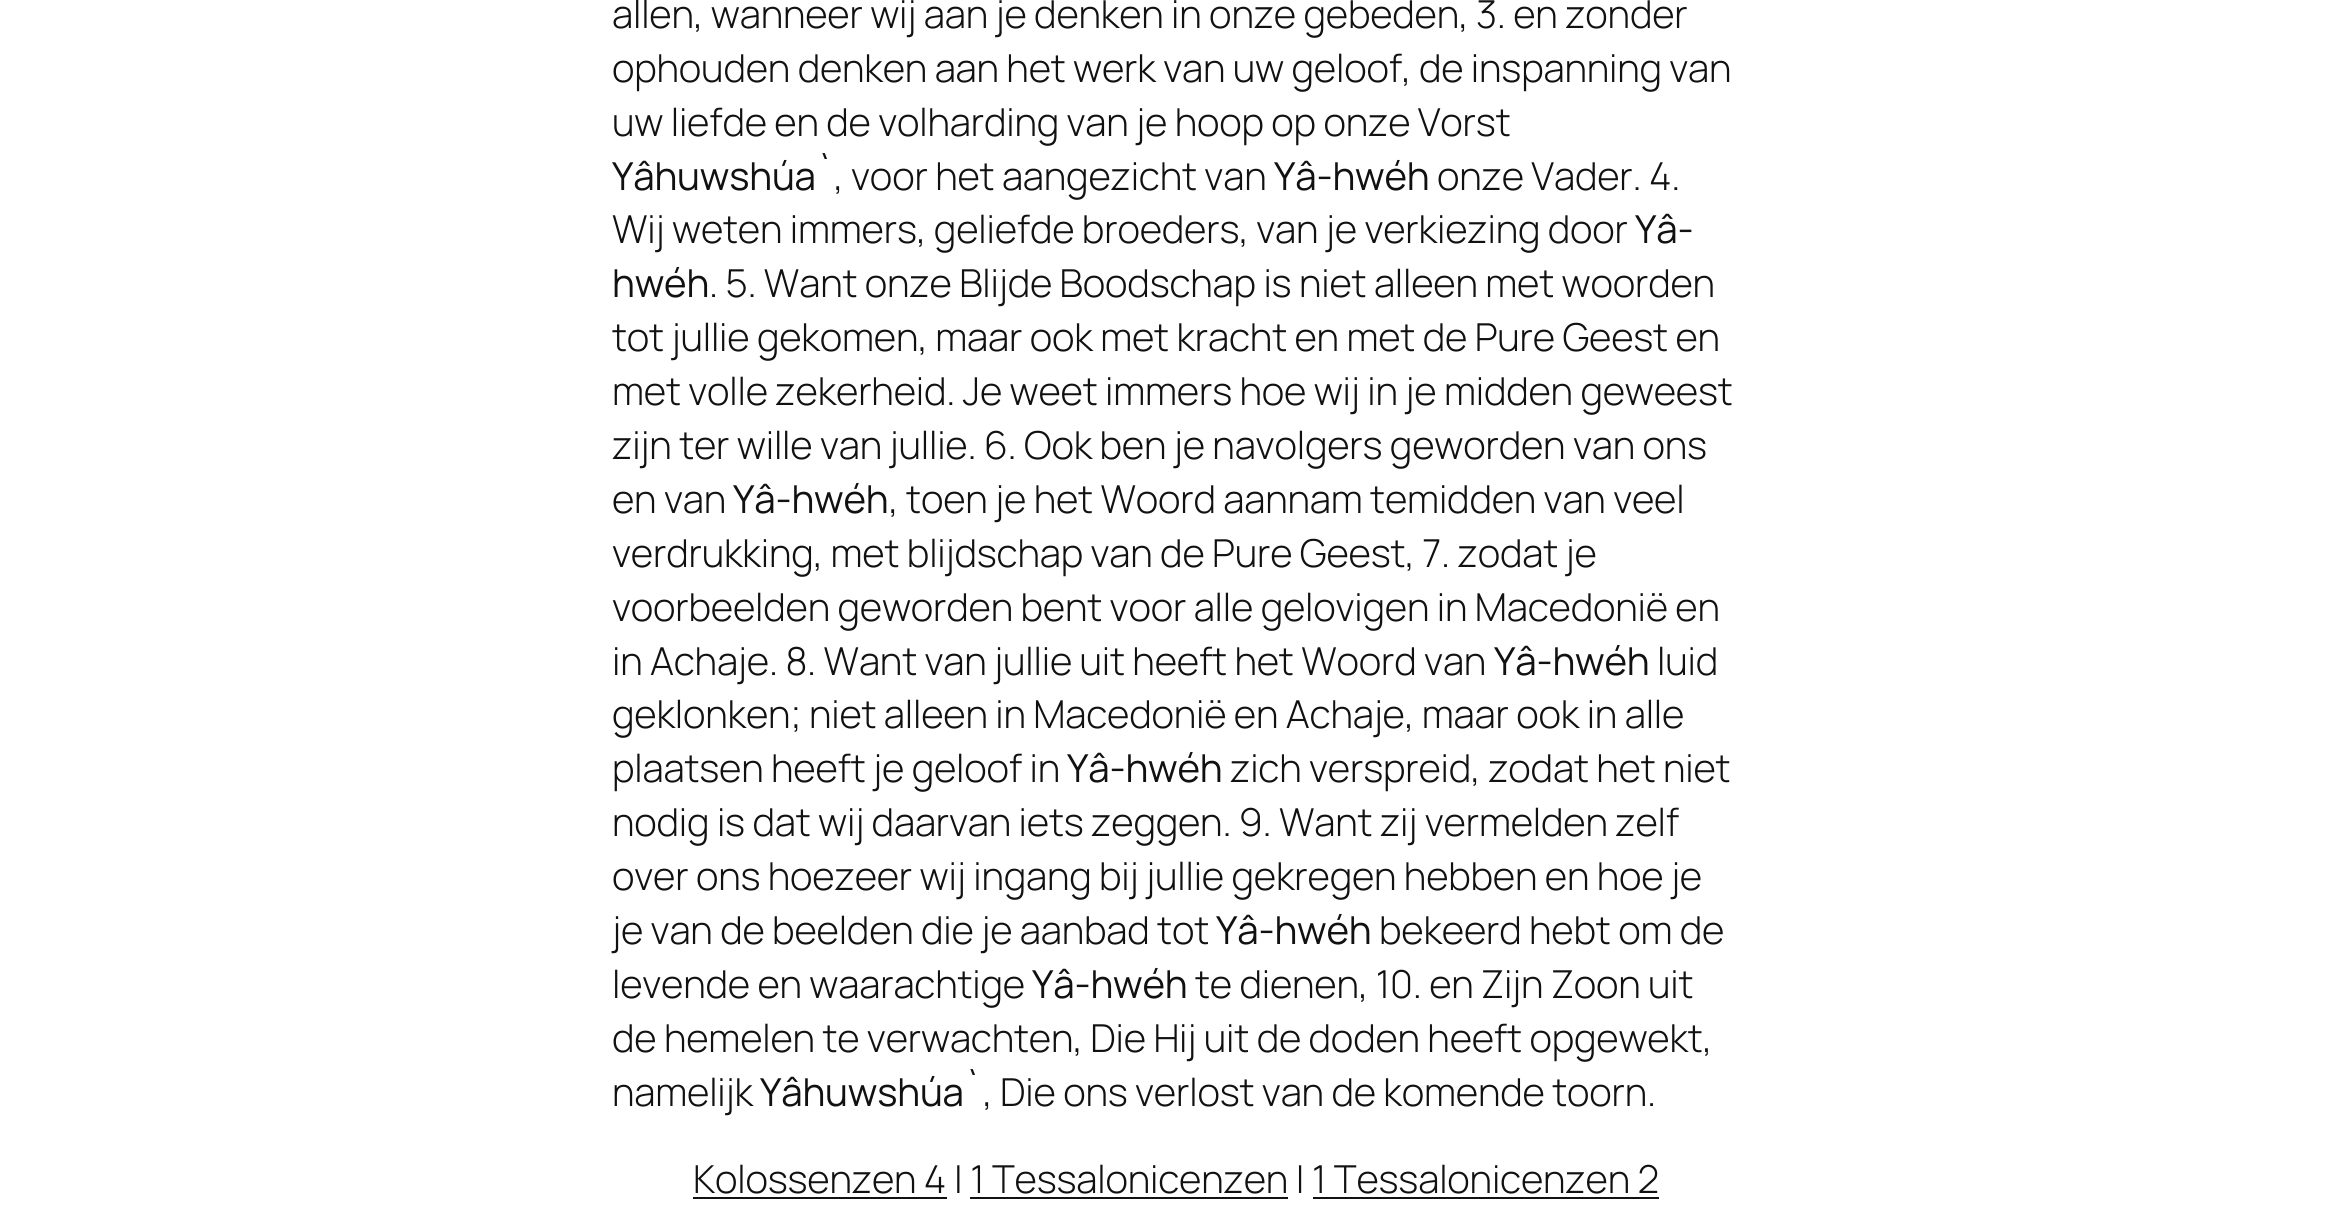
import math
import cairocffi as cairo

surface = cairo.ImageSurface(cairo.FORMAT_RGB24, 2351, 1227)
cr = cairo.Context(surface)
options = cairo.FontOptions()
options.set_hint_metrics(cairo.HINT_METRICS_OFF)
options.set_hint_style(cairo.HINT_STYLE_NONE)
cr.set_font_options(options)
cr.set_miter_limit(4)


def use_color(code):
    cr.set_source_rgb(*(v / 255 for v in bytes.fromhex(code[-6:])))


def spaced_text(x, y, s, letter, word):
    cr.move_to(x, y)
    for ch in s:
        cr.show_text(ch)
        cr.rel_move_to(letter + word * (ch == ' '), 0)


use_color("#ffffff")
cr.paint()
cr.select_font_face("Manrope Light")
cr.set_font_size(38.5)
use_color("#111111")
spaced_text(612, 28, "allen, wanneer wij aan je denken in onze gebeden, 3. en zonder", -0.18, 0)
spaced_text(612, 82, "ophouden denken aan het werk van uw geloof, de inspanning van", -0.18, 0)
spaced_text(612, 136, "uw liefde en de volharding van je hoop op onze Vorst", -0.18, 0)
cr.select_font_face("Manrope")
spaced_text(612, 190, "Yâhuwshúa`", -0.18, 0)
cr.select_font_face("Manrope Light")
spaced_text(834, 190, ", voor het aangezicht van", -0.18, 0)
cr.select_font_face("Manrope")
spaced_text(1274, 190, "Yâ-hwéh", -0.18, 0)
cr.select_font_face("Manrope Light")
spaced_text(1437, 190, "onze Vader. 4.", -0.18, 0)
spaced_text(612, 243, "Wij weten immers, geliefde broeders, van je verkiezing door", -0.18, 0)
cr.select_font_face("Manrope")
spaced_text(1635, 243, "Yâ-", -0.18, 0)
spaced_text(612, 297, "hwéh", -0.18, 0)
cr.select_font_face("Manrope Light")
spaced_text(709, 297, ". 5. Want onze Blijde Boodschap is niet alleen met woorden", -0.18, 0)
spaced_text(612, 351, "tot jullie gekomen, maar ook met kracht en met de Pure Geest en", -0.18, 0)
spaced_text(612, 405, "met volle zekerheid. Je weet immers hoe wij in je midden geweest", -0.18, 0)
spaced_text(612, 459, "zijn ter wille van jullie. 6. Ook ben je navolgers geworden van ons", -0.18, 0)
spaced_text(612, 513, "en van", -0.18, 0)
cr.select_font_face("Manrope")
spaced_text(733, 513, "Yâ-hwéh", -0.18, 0)
cr.select_font_face("Manrope Light")
spaced_text(889, 513, ", toen je het Woord aannam temidden van veel", -0.18, 0)
spaced_text(612, 567, "verdrukking, met blijdschap van de Pure Geest, 7. zodat je", -0.18, 0)
spaced_text(612, 621, "voorbeelden geworden bent voor alle gelovigen in Macedonië en", -0.18, 0)
spaced_text(612, 675, "in Achaje. 8. Want van jullie uit heeft het Woord van", -0.18, 0)
cr.select_font_face("Manrope")
spaced_text(1494, 675, "Yâ-hwéh", -0.18, 0)
cr.select_font_face("Manrope Light")
spaced_text(1657, 675, "luid", -0.18, 0)
spaced_text(612, 728, "geklonken; niet alleen in Macedonië en Achaje, maar ook in alle", -0.18, 0)
spaced_text(612, 782, "plaatsen heeft je geloof in", -0.18, 0)
cr.select_font_face("Manrope")
spaced_text(1067, 782, "Yâ-hwéh", -0.18, 0)
cr.select_font_face("Manrope Light")
spaced_text(1230, 782, "zich verspreid, zodat het niet", -0.18, 0)
spaced_text(612, 836, "nodig is dat wij daarvan iets zeggen. 9. Want zij vermelden zelf", -0.18, 0)
spaced_text(612, 890, "over ons hoezeer wij ingang bij jullie gekregen hebben en hoe je", -0.18, 0)
spaced_text(612, 944, "je van de beelden die je aanbad tot", -0.18, 0)
cr.select_font_face("Manrope")
spaced_text(1216, 944, "Yâ-hwéh", -0.18, 0)
cr.select_font_face("Manrope Light")
spaced_text(1379, 944, "bekeerd hebt om de", -0.18, 0)
spaced_text(612, 998, "levende en waarachtige", -0.18, 0)
cr.select_font_face("Manrope")
spaced_text(1032, 998, "Yâ-hwéh", -0.18, 0)
cr.select_font_face("Manrope Light")
spaced_text(1195, 998, "te dienen, 10. en Zijn Zoon uit", -0.18, 0)
spaced_text(612, 1052, "de hemelen te verwachten, Die Hij uit de doden heeft opgewekt,", -0.18, 0)
spaced_text(612, 1106, "namelijk", -0.18, 0)
cr.select_font_face("Manrope")
spaced_text(760, 1106, "Yâhuwshúa`", -0.18, 0)
cr.select_font_face("Manrope Light")
spaced_text(983, 1106, ", Die ons verlost van de komende toorn.", -0.18, 0)
spaced_text(693, 1193, "Kolossenzen 4 | 1 Tessalonicenzen | 1 Tessalonicenzen 2", -0.18, 0)
cr.rectangle(693, 1197, 254, 2)
cr.fill()
cr.rectangle(970, 1197, 318, 2)
cr.fill()
cr.rectangle(1313, 1197, 346, 2)
cr.fill()
surface.write_to_png("result.png")
